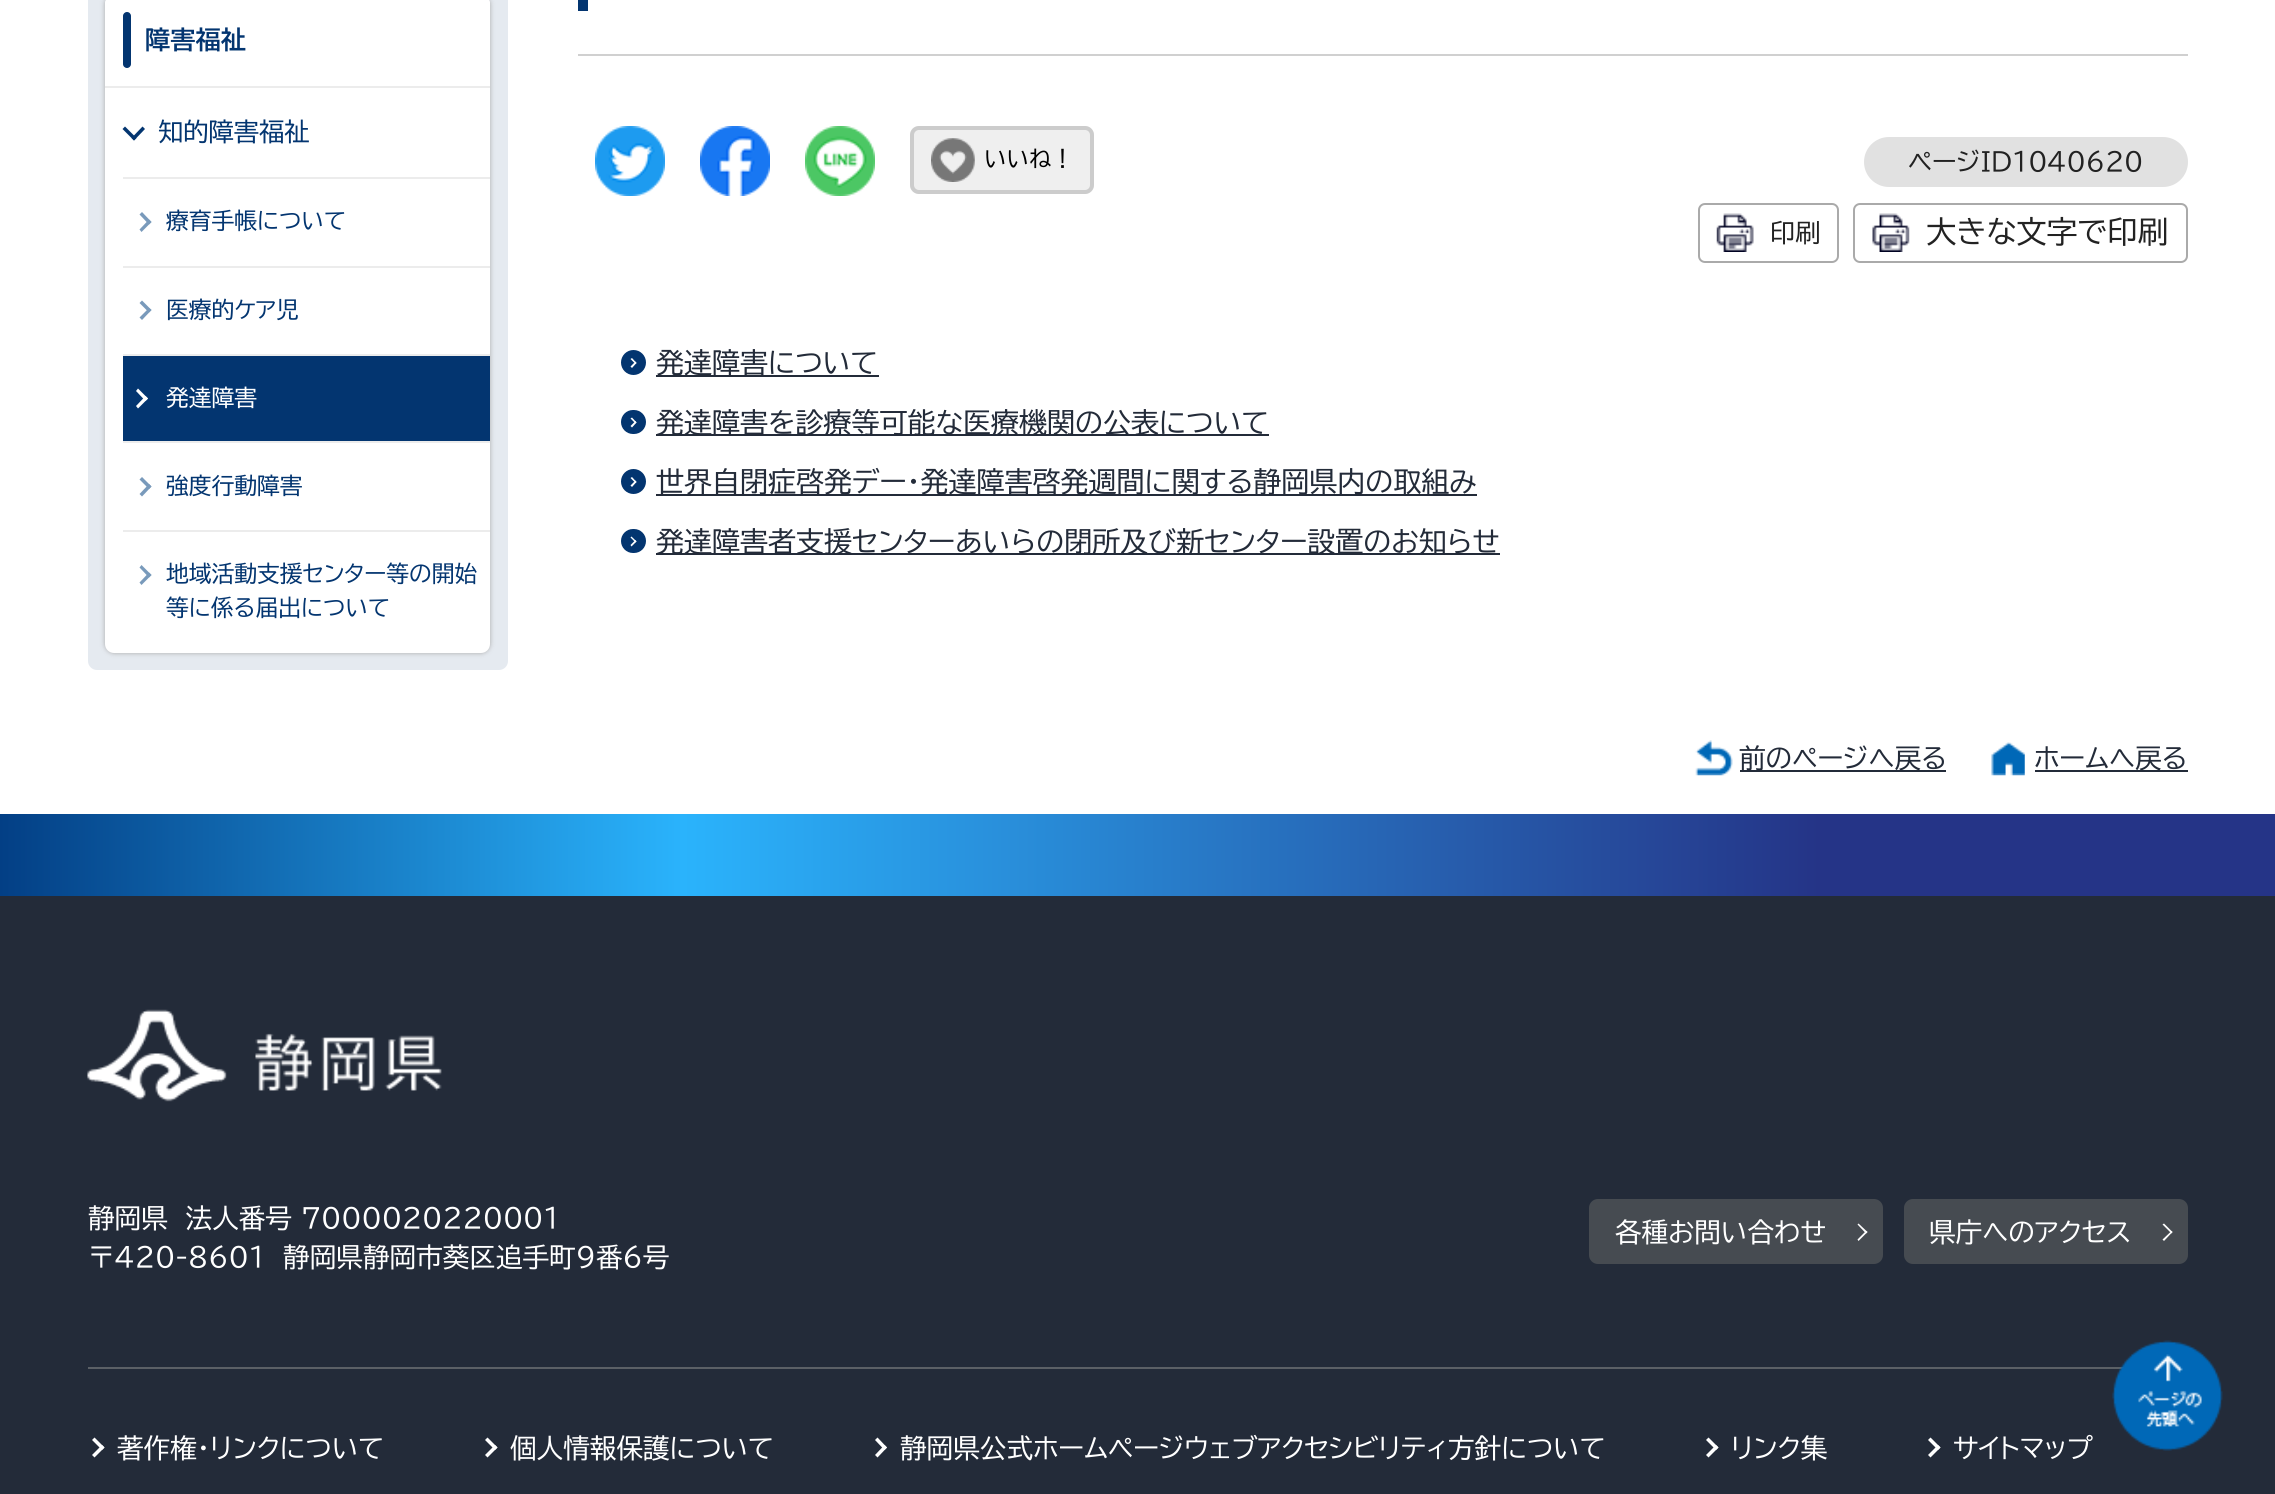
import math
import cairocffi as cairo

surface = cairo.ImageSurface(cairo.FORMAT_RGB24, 2275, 1494)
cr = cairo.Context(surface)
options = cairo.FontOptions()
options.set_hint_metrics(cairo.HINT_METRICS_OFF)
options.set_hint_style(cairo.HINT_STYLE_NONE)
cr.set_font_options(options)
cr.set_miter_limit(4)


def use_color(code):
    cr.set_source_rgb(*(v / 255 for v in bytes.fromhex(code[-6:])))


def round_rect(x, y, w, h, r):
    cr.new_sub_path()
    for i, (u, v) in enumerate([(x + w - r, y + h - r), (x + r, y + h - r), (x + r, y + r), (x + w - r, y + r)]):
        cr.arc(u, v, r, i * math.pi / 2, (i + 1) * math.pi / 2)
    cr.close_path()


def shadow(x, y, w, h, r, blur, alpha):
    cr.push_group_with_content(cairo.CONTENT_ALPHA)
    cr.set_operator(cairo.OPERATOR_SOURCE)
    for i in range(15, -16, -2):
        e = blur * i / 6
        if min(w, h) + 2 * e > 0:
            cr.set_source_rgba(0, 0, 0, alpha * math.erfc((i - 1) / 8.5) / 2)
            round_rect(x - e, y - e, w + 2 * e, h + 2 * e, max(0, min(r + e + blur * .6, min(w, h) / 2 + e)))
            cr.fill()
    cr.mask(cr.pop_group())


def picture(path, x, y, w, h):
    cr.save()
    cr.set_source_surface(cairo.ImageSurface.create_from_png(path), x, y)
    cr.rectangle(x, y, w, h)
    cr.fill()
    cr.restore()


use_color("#ffffff")
cr.paint()
use_color("#e5eaf0")
round_rect(88, -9, 420, 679, 9)
cr.fill()
use_color("#aaaaaa")
shadow(105, -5, 385, 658, 9, 2.5, 1)
use_color("#ffffff")
round_rect(105, -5, 385, 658, 9)
cr.fill()
cr.new_path()
cr.move_to(114, -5)
cr.line_to(481, -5)
cr.curve_to(486, -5, 490, -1, 490, 4)
cr.line_to(490, 86)
cr.line_to(105, 86)
cr.line_to(105, 4)
cr.curve_to(105, -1, 109, -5, 114, -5)
cr.close_path()
cr.fill()
use_color("#033570")
round_rect(123, 12, 8, 56, 4)
cr.fill()
cr.select_font_face("BIZ UDPGothic", cairo.FONT_SLANT_NORMAL, cairo.FONT_WEIGHT_BOLD)
cr.set_font_size(25.25)
cr.move_to(145, 49)
cr.show_text("障害福祉")
use_color("#ececec")
cr.rectangle(105, 86, 385, 2)
cr.fill()
use_color("#033570")
cr.new_path()
cr.move_to(145, 129)
cr.line_to(134, 140.5)
cr.line_to(131.5, 138)
cr.line_to(142.5, 126.5)
cr.close_path()
cr.fill()
cr.new_path()
cr.move_to(136.5, 138)
cr.line_to(134, 140.5)
cr.line_to(122.5, 129)
cr.line_to(125, 126.5)
cr.close_path()
cr.fill()
cr.select_font_face("BIZ UDPGothic")
cr.move_to(158, 141)
cr.show_text("知的障害福祉")
use_color("#ececec")
cr.rectangle(123, 177, 367, 2)
cr.fill()
use_color("#799abb")
cr.new_path()
cr.move_to(142, 212)
cr.line_to(151.5, 222)
cr.line_to(149, 224.5)
cr.line_to(139.5, 214.5)
cr.close_path()
cr.fill()
cr.new_path()
cr.move_to(149, 219.5)
cr.line_to(151.5, 222)
cr.line_to(141.5, 232)
cr.line_to(139.5, 229.5)
cr.close_path()
cr.fill()
cr.set_font_size(22.75)
use_color("#033570")
cr.move_to(166, 229)
cr.show_text("療育手帳について")
use_color("#ececec")
cr.rectangle(123, 266, 367, 2)
cr.fill()
use_color("#799abb")
cr.new_path()
cr.move_to(142, 300.5)
cr.line_to(151.5, 310)
cr.line_to(149, 312.5)
cr.line_to(139.5, 303)
cr.close_path()
cr.fill()
cr.new_path()
cr.move_to(149, 308)
cr.line_to(151.5, 310)
cr.line_to(142, 320)
cr.line_to(139.5, 317.5)
cr.close_path()
cr.fill()
use_color("#033570")
cr.move_to(166, 318)
cr.show_text("医療的ケア児")
cr.rectangle(123, 356, 367, 85)
cr.fill()
use_color("#ececec")
cr.rectangle(123, 354, 367, 2)
cr.fill()
use_color("#ffffff")
cr.new_path()
cr.move_to(138, 388.5)
cr.line_to(148, 398.5)
cr.line_to(145.5, 401)
cr.line_to(136, 391)
cr.close_path()
cr.fill()
cr.new_path()
cr.move_to(145.5, 396)
cr.line_to(148, 398.5)
cr.line_to(138, 408.5)
cr.line_to(136, 406)
cr.close_path()
cr.fill()
cr.move_to(166, 406)
cr.show_text("発達障害")
use_color("#ececec")
cr.rectangle(123, 441, 367, 2)
cr.fill()
use_color("#799abb")
cr.new_path()
cr.move_to(142, 477)
cr.line_to(151.5, 486.5)
cr.line_to(149, 489)
cr.line_to(139.5, 479.5)
cr.close_path()
cr.fill()
cr.new_path()
cr.move_to(149, 484)
cr.line_to(151.5, 486.5)
cr.line_to(142, 496.5)
cr.line_to(139.5, 494)
cr.close_path()
cr.fill()
use_color("#033570")
cr.move_to(166, 494)
cr.show_text("強度行動障害")
use_color("#ececec")
cr.rectangle(123, 530, 367, 2)
cr.fill()
use_color("#799abb")
cr.new_path()
cr.move_to(141.5, 565)
cr.line_to(151.5, 575)
cr.line_to(149, 577.5)
cr.line_to(139.5, 567.5)
cr.close_path()
cr.fill()
cr.new_path()
cr.move_to(149, 572.5)
cr.line_to(151.5, 575)
cr.line_to(141.5, 585)
cr.line_to(139.5, 582.5)
cr.close_path()
cr.fill()
use_color("#033570")
cr.move_to(166, 582)
cr.show_text("地域活動支援センター等の開始")
cr.move_to(166, 616)
cr.show_text("等に係る届出について")
use_color("#d0d0d0")
cr.rectangle(578, 54, 1610, 2)
cr.fill()
use_color("#033570")
cr.rectangle(578, 0, 10, 11)
cr.fill()
picture("img1.png", 595, 126, 70, 70)
picture("img2.png", 700, 126, 70, 70)
picture("img3.png", 805, 126, 70, 70)
use_color("#efefef")
round_rect(910, 126, 184, 68, 9)
cr.fill()
picture("img4.png", 931, 138, 44, 44)
round_rect(912, 128, 180, 64, 7)
use_color("#cccccc")
cr.set_line_width(4)
cr.stroke()
cr.set_font_size(22.5)
use_color("#000000")
cr.move_to(984, 167)
cr.show_text("いいね！")
use_color("#e1e1e1")
round_rect(1864, 137, 324, 50, 25)
cr.fill()
cr.set_font_size(25.25)
use_color("#222222")
cr.move_to(1908, 171)
cr.show_text("ページID1040620")
round_rect(1699, 204, 139, 58, 6)
use_color("#aaaaaa")
cr.set_line_width(2)
cr.stroke()
picture("img5.png", 1716, 213, 38, 39)
use_color("#222222")
cr.move_to(1770, 242)
cr.show_text("印刷")
round_rect(1854, 204, 333, 58, 6)
use_color("#aaaaaa")
cr.stroke()
picture("img6.png", 1872, 213, 38, 39)
cr.set_font_size(30.5)
use_color("#222222")
cr.move_to(1926, 243)
cr.show_text("大きな文字で印刷")
use_color("#033570")
cr.new_path()
cr.arc(633.5, 362.5, 12.5, 0, 2 * math.pi)
cr.fill()
use_color("#232b39")
cr.rectangle(656, 375, 223, 2)
cr.fill()
cr.set_font_size(28)
cr.move_to(656, 373)
cr.show_text("発達障害について")
use_color("#ffffff")
cr.new_path()
cr.move_to(632, 358)
cr.line_to(636.5, 363)
cr.line_to(635.5, 364)
cr.line_to(630.5, 359)
cr.close_path()
cr.fill()
cr.new_path()
cr.move_to(635.5, 361.5)
cr.line_to(636.5, 363)
cr.line_to(632, 368)
cr.line_to(630.5, 366.5)
cr.close_path()
cr.fill()
use_color("#033570")
round_rect(621, 410, 25, 24, 12)
cr.fill()
use_color("#232b39")
cr.rectangle(656, 434, 613, 2)
cr.fill()
cr.move_to(656, 433)
cr.show_text("発達障害を診療等可能な医療機関の公表について")
use_color("#ffffff")
cr.new_path()
cr.move_to(632, 417.5)
cr.line_to(636.5, 422.5)
cr.line_to(635.5, 423.5)
cr.line_to(630.5, 418.5)
cr.close_path()
cr.fill()
cr.new_path()
cr.move_to(635.5, 421)
cr.line_to(636.5, 422.5)
cr.line_to(632, 427.5)
cr.line_to(630.5, 426)
cr.close_path()
cr.fill()
use_color("#033570")
cr.arc(633.5, 481.5, 12.5, 0, 2 * math.pi)
cr.fill()
use_color("#232b39")
cr.rectangle(656, 494, 821, 2)
cr.fill()
cr.move_to(656, 492)
cr.show_text("世界自閉症啓発デー・発達障害啓発週間に関する静岡県内の取組み")
use_color("#ffffff")
cr.new_path()
cr.move_to(632, 477)
cr.line_to(636.5, 482)
cr.line_to(635.5, 483)
cr.line_to(630.5, 478)
cr.close_path()
cr.fill()
cr.new_path()
cr.move_to(635.5, 480.5)
cr.line_to(636.5, 482)
cr.line_to(632, 487)
cr.line_to(630.5, 485.5)
cr.close_path()
cr.fill()
use_color("#033570")
round_rect(621, 529, 25, 24, 12)
cr.fill()
use_color("#232b39")
cr.rectangle(656, 553, 844, 2)
cr.fill()
cr.move_to(656, 552)
cr.show_text("発達障害者支援センターあいらの閉所及び新センター設置のお知らせ")
use_color("#ffffff")
cr.new_path()
cr.move_to(631.5, 536.5)
cr.line_to(636.5, 541.5)
cr.line_to(635.5, 542.5)
cr.line_to(630.5, 537.5)
cr.close_path()
cr.fill()
cr.new_path()
cr.move_to(635.5, 540)
cr.line_to(636.5, 541.5)
cr.line_to(631.5, 546.5)
cr.line_to(630.5, 545)
cr.close_path()
cr.fill()
picture("img7.png", 1695, 740, 38, 36)
use_color("#232b39")
cr.rectangle(1740, 770, 206, 2)
cr.fill()
cr.set_font_size(26.6)
cr.move_to(1739, 768)
cr.show_text("前のページへ戻る")
picture("img8.png", 1991, 742, 34, 34)
cr.rectangle(2035, 770, 153, 2)
cr.fill()
cr.move_to(2034, 768)
cr.show_text("ホームへ戻る")
cr.rectangle(0, 896, 2275, 598)
cr.fill()
use_color("#5b6066")
cr.rectangle(88, 1367, 2036, 2)
cr.fill()
picture("img9.png", 2112, 1340, 111, 111)
gradient = cairo.LinearGradient(0, 855, 2275, 855)
gradient.add_color_stop_rgba(0, 0.012, 0.247, 0.522, 1)
gradient.add_color_stop_rgba(0.3, 0.165, 0.702, 0.988, 1)
gradient.add_color_stop_rgba(0.8, 0.145, 0.204, 0.529, 1)
cr.set_source(gradient)
cr.rectangle(0, 814, 2275, 82)
cr.fill()
picture("img10.png", 87, 1009, 355, 93)
use_color("#ffffff")
cr.move_to(88, 1228)
cr.show_text("静岡県　法人番号 7000020220001")
cr.move_to(88, 1267)
cr.show_text("〒420-8601　静岡県静岡市葵区追手町9番6号")
use_color("#464b51")
round_rect(1589, 1199, 294, 65, 9)
cr.fill()
use_color("#ffffff")
cr.move_to(1615, 1242)
cr.show_text("各種お問い合わせ")
cr.new_path()
cr.move_to(1867.5, 1232)
cr.line_to(1858.5, 1241)
cr.line_to(1857.5, 1239.5)
cr.line_to(1866, 1231)
cr.close_path()
cr.fill()
cr.new_path()
cr.move_to(1867.5, 1232)
cr.line_to(1866, 1233.5)
cr.line_to(1857.5, 1224.5)
cr.line_to(1858.5, 1223.5)
cr.close_path()
cr.fill()
use_color("#464b51")
round_rect(1904, 1199, 284, 65, 9)
cr.fill()
use_color("#ffffff")
cr.move_to(1929, 1242)
cr.show_text("県庁へのアクセス")
cr.new_path()
cr.move_to(2172.5, 1232)
cr.line_to(2164, 1241)
cr.line_to(2162.5, 1239.5)
cr.line_to(2171.5, 1231)
cr.close_path()
cr.fill()
cr.new_path()
cr.move_to(2172.5, 1232)
cr.line_to(2171.5, 1233.5)
cr.line_to(2162.5, 1224.5)
cr.line_to(2164, 1223.5)
cr.close_path()
cr.fill()
cr.new_path()
cr.move_to(104.5, 1447.5)
cr.line_to(94.5, 1457.5)
cr.line_to(92, 1455)
cr.line_to(102, 1445)
cr.close_path()
cr.fill()
cr.new_path()
cr.move_to(104.5, 1447.5)
cr.line_to(102, 1450)
cr.line_to(92, 1440)
cr.line_to(94.5, 1437.5)
cr.close_path()
cr.fill()
cr.move_to(117, 1458)
cr.show_text("著作権・リンクについて")
cr.new_path()
cr.move_to(497.5, 1447.5)
cr.line_to(487.5, 1457.5)
cr.line_to(485, 1455)
cr.line_to(495, 1445)
cr.close_path()
cr.fill()
cr.new_path()
cr.move_to(497.5, 1447.5)
cr.line_to(495, 1450)
cr.line_to(485, 1440)
cr.line_to(487.5, 1437.5)
cr.close_path()
cr.fill()
cr.move_to(510, 1458)
cr.show_text("個人情報保護について")
cr.new_path()
cr.move_to(887, 1447.5)
cr.line_to(877.5, 1457.5)
cr.line_to(875, 1455)
cr.line_to(884.5, 1445)
cr.close_path()
cr.fill()
cr.new_path()
cr.move_to(887, 1447.5)
cr.line_to(884.5, 1450)
cr.line_to(875, 1440)
cr.line_to(877.5, 1437.5)
cr.close_path()
cr.fill()
cr.move_to(900, 1458)
cr.show_text("静岡県公式ホームページウェブアクセシビリティ方針について")
cr.new_path()
cr.move_to(1718.5, 1447.5)
cr.line_to(1708.5, 1457.5)
cr.line_to(1706, 1455)
cr.line_to(1716, 1445)
cr.close_path()
cr.fill()
cr.new_path()
cr.move_to(1718.5, 1447.5)
cr.line_to(1716, 1450)
cr.line_to(1706, 1440)
cr.line_to(1708.5, 1437.5)
cr.close_path()
cr.fill()
cr.move_to(1731, 1458)
cr.show_text("リンク集")
cr.new_path()
cr.move_to(1940.5, 1447.5)
cr.line_to(1930.5, 1457.5)
cr.line_to(1928, 1455)
cr.line_to(1938, 1445)
cr.close_path()
cr.fill()
cr.new_path()
cr.move_to(1940.5, 1447.5)
cr.line_to(1938, 1450)
cr.line_to(1928, 1440)
cr.line_to(1930.5, 1437.5)
cr.close_path()
cr.fill()
cr.move_to(1953, 1458)
cr.show_text("サイトマップ")
surface.write_to_png("result.png")
